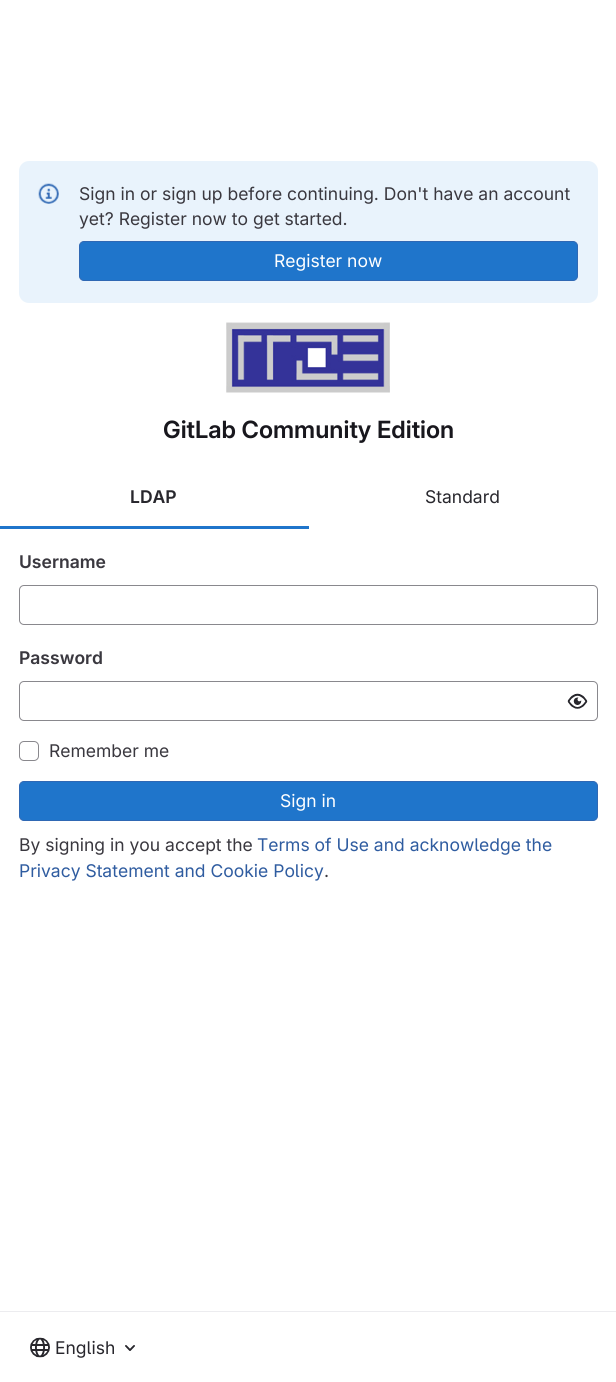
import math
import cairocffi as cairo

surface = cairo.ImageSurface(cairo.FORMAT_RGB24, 616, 1382)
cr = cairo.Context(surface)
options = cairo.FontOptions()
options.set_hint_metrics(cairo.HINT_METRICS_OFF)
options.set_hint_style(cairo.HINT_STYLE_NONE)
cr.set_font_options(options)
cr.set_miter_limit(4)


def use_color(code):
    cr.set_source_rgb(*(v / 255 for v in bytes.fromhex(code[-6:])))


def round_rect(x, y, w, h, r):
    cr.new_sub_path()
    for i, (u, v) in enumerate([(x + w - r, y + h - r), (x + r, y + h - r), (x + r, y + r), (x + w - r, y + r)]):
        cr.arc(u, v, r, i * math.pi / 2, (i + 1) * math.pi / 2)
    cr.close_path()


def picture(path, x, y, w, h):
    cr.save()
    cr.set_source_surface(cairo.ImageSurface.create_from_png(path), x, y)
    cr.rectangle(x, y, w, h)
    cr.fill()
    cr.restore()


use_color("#ffffff")
cr.paint()
use_color("#e9f3fc")
round_rect(19, 161, 579, 142, 10)
cr.fill()
picture("img1.png", 38, 183, 21, 21)
cr.select_font_face("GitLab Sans")
cr.set_font_size(17.5)
use_color("#3a383f")
cr.move_to(79, 200)
cr.show_text("Sign in or sign up before continuing. Don't have an account")
cr.move_to(79, 225)
cr.show_text("yet? Register now to get started.")
use_color("#1f75cb")
round_rect(79.5, 241.5, 498, 39, 4.5)
cr.fill_preserve()
use_color("#2f68b4")
cr.set_line_width(1)
cr.stroke()
use_color("#ffffff")
cr.move_to(274, 267)
cr.show_text("Register now")
picture("img2.png", 226, 322, 164, 71)
cr.select_font_face("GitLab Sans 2 SemiBold")
cr.set_font_size(23.75)
use_color("#18171d")
cr.move_to(163, 438)
cr.show_text("GitLab Community Edition")
cr.select_font_face("GitLab Sans SemiBold")
cr.set_font_size(17.5)
use_color("#28272d")
cr.move_to(130, 503)
cr.show_text("LDAP")
use_color("#1f75cb")
cr.rectangle(0, 526, 309, 3)
cr.fill()
cr.select_font_face("GitLab Sans")
use_color("#28272d")
cr.move_to(425, 503)
cr.show_text("Standard")
cr.select_font_face("GitLab Sans SemiBold")
use_color("#3a383f")
cr.move_to(19, 568)
cr.show_text("Username")
round_rect(19.5, 585.5, 578, 39, 4.5)
use_color("#89888d")
cr.stroke()
use_color("#3a383f")
cr.move_to(19, 664)
cr.show_text("Password")
round_rect(19.5, 681.5, 578, 39, 4.5)
use_color("#89888d")
cr.stroke()
picture("img3.png", 567, 693, 21, 16)
round_rect(19.5, 741.5, 19, 19, 4.5)
cr.stroke()
cr.select_font_face("GitLab Sans")
use_color("#3a383f")
cr.move_to(49, 757)
cr.show_text("Remember me")
use_color("#1f75cb")
round_rect(19.5, 781.5, 578, 39, 4.5)
cr.fill_preserve()
use_color("#2f68b4")
cr.stroke()
use_color("#ffffff")
cr.move_to(280, 807)
cr.show_text("Sign in")
use_color("#3a383f")
cr.move_to(19, 851)
cr.show_text("By signing in you accept the")
use_color("#2f5ca0")
cr.move_to(257, 851)
cr.show_text("Terms of Use and acknowledge the")
cr.move_to(19, 877)
cr.show_text("Privacy Statement and Cookie Policy")
use_color("#3a383f")
cr.move_to(324, 877)
cr.show_text(".")
use_color("#ececef")
cr.rectangle(0, 1311, 616, 1)
cr.fill()
picture("img4.png", 30, 1337, 20, 21)
use_color("#28272d")
cr.move_to(55, 1354)
cr.show_text("English")
picture("img5.png", 125, 1345, 10, 6)
surface.write_to_png("result.png")
